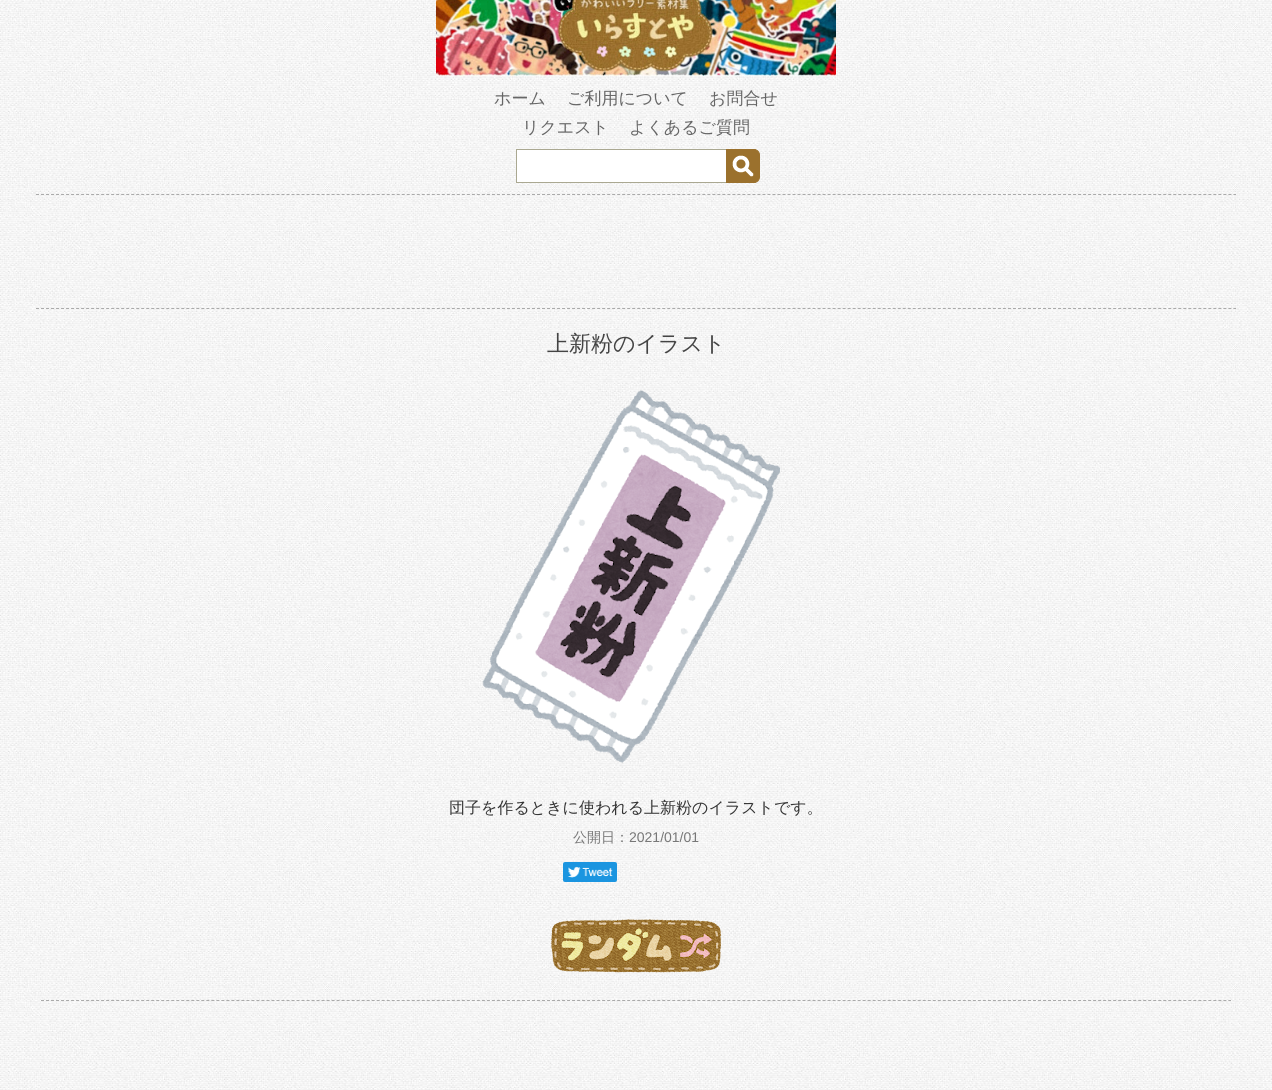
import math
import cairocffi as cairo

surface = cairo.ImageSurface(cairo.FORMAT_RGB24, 1272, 1090)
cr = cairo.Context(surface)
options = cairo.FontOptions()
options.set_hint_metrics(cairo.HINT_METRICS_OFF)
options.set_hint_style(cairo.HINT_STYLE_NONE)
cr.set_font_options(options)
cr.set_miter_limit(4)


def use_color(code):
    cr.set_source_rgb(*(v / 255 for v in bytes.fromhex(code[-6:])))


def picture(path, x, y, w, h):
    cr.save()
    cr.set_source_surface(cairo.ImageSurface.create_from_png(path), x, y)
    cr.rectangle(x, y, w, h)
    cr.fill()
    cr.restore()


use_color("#ffffff")
cr.paint()
picture("img1.png", 0, 0, 1272, 1090)
picture("img2.png", 436, 0, 400, 76)
cr.new_path()
cr.move_to(36, 194.5)
cr.line_to(1236, 194.5)
use_color("#aaaaaa")
cr.set_line_width(1)
cr.set_dash([3, 2.01])
cr.stroke()
cr.select_font_face("WenQuanYi Zen Hei Medium")
cr.set_font_size(17)
use_color("#666666")
cr.move_to(494, 104)
cr.show_text("ホーム")
cr.move_to(567, 104)
cr.show_text("ご利用について")
cr.move_to(709, 104)
cr.show_text("お問合せ")
cr.move_to(522, 133)
cr.show_text("リクエスト")
cr.move_to(629, 133)
cr.show_text("よくあるご質問")
use_color("#ffffff")
cr.rectangle(517, 150, 209, 32)
cr.fill()
cr.rectangle(516.5, 149.5, 239, 33)
use_color("#aaa891")
cr.set_dash([])
cr.stroke()
use_color("#9b712d")
cr.new_path()
cr.move_to(726.5, 149.5)
cr.line_to(754, 149.5)
cr.curve_to(757, 149.5, 759.5, 152, 759.5, 155)
cr.line_to(759.5, 177)
cr.curve_to(759.5, 180, 757, 182.5, 754, 182.5)
cr.line_to(726.5, 182.5)
cr.close_path()
cr.fill_preserve()
cr.stroke()
picture("img3.png", 732, 155, 22, 22)
cr.new_path()
cr.move_to(36, 308.5)
cr.line_to(1236, 308.5)
use_color("#aaaaaa")
cr.set_dash([3, 2.01])
cr.stroke()
cr.set_font_size(22)
use_color("#444444")
cr.move_to(547, 351)
cr.show_text("上新粉のイラスト")
picture("img4.png", 482, 390, 299, 373)
cr.set_font_size(16)
use_color("#333333")
cr.move_to(449, 813)
cr.show_text("団子を作るときに使われる上新粉のイラストです。")
cr.set_font_size(14)
use_color("#777777")
cr.move_to(573, 842)
cr.show_text("公開日：")
cr.select_font_face("Liberation Sans")
cr.move_to(629, 842)
cr.show_text("2021/01/01")
picture("img5.png", 563, 862, 54, 20)
picture("img6.png", 551, 919, 170, 54)
cr.new_path()
cr.move_to(41, 1000.5)
cr.line_to(1231, 1000.5)
use_color("#aaaaaa")
cr.stroke()
surface.write_to_png("result.png")
